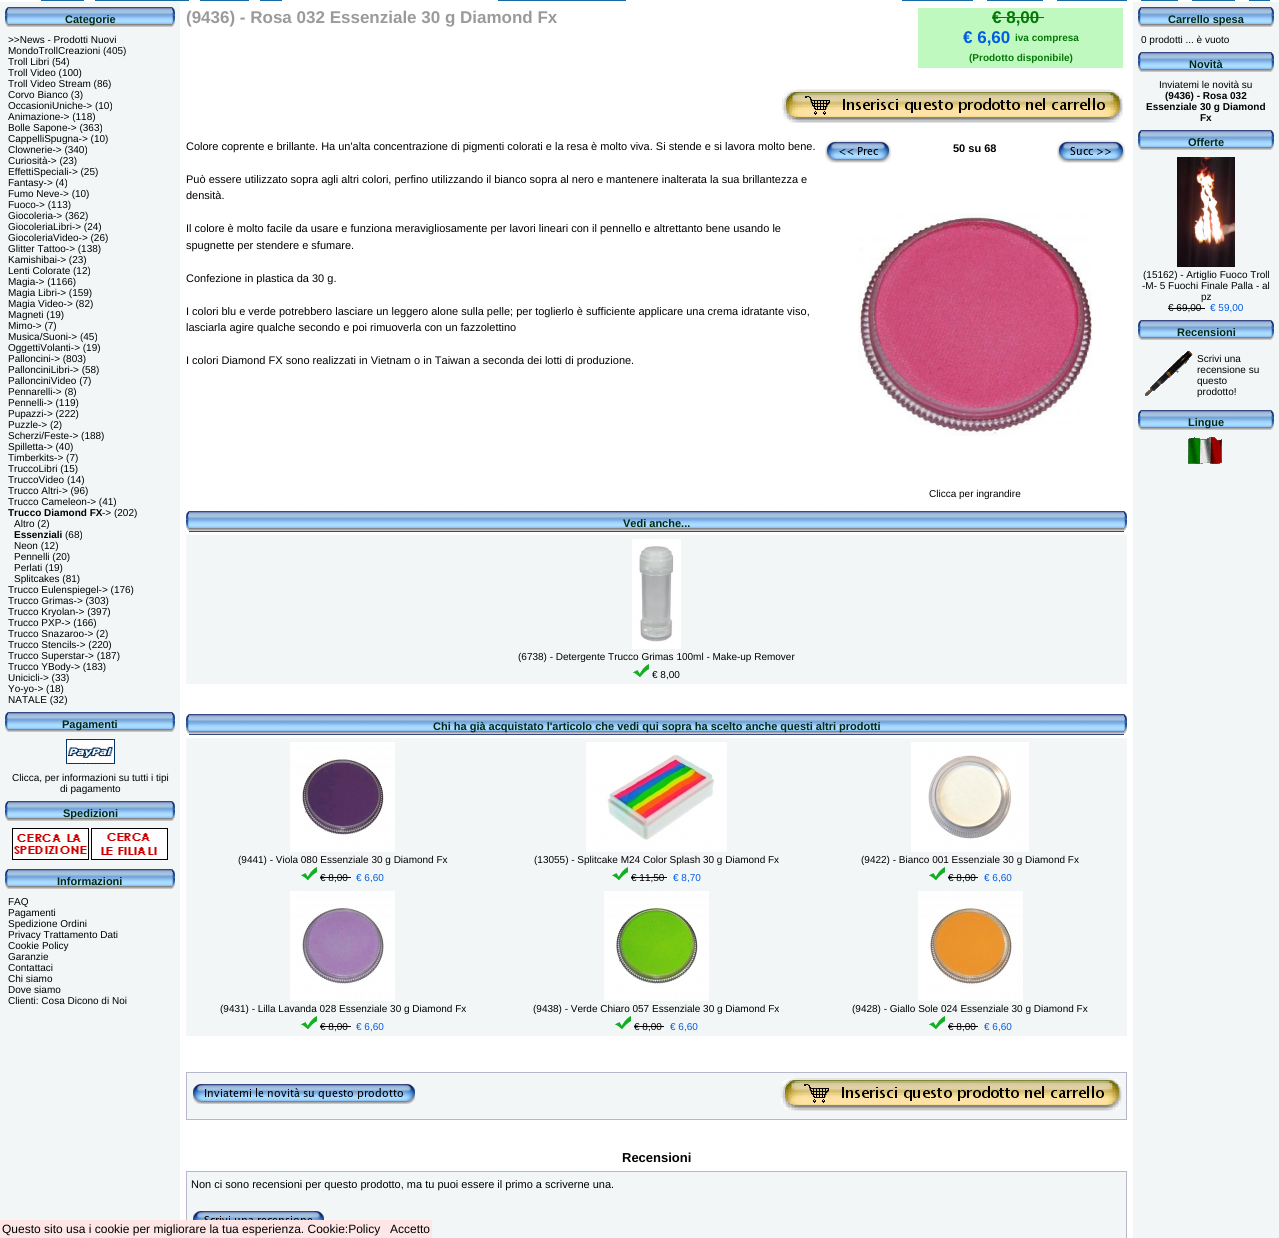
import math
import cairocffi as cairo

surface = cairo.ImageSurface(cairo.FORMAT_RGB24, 1279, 1238)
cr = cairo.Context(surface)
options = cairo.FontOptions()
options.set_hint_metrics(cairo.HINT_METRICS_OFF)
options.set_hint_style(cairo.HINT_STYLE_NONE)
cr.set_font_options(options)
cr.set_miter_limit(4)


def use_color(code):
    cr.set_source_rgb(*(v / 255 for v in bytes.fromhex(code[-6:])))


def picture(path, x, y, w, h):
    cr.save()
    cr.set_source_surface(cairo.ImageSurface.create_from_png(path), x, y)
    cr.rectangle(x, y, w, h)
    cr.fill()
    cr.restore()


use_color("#ffffff")
cr.paint()
use_color("#156ca4")
cr.rectangle(41, 0, 43, 1)
cr.fill()
cr.rectangle(95, 0, 94, 1)
cr.fill()
cr.rectangle(200, 0, 49, 1)
cr.fill()
cr.rectangle(260, 0, 22, 1)
cr.fill()
cr.rectangle(498, 0, 128, 1)
cr.fill()
cr.rectangle(902, 0, 71, 1)
cr.fill()
cr.rectangle(987, 0, 56, 1)
cr.fill()
cr.rectangle(1057, 0, 70, 1)
cr.fill()
cr.rectangle(1141, 0, 37, 1)
cr.fill()
cr.rectangle(1192, 0, 43, 1)
cr.fill()
cr.rectangle(1249, 0, 21, 1)
cr.fill()
use_color("#f3f6f7")
cr.rectangle(0, 2, 180, 1218)
cr.fill()
picture("img1.png", 5, 7, 3, 20)
picture("img2.png", 8, 7, 164, 20)
cr.select_font_face("Liberation Sans", cairo.FONT_SLANT_NORMAL, cairo.FONT_WEIGHT_BOLD)
cr.set_font_size(11)
use_color("#012916")
cr.move_to(65, 23)
cr.show_text("Categorie")
picture("img3.png", 172, 7, 3, 20)
cr.select_font_face("Liberation Sans")
cr.set_font_size(10)
use_color("#000000")
cr.move_to(8, 43)
cr.show_text(">>News - Prodotti Nuovi")
cr.move_to(8, 54)
cr.show_text("MondoTrollCreazioni (405)")
cr.move_to(8, 65)
cr.show_text("Troll Libri (54)")
cr.move_to(8, 76)
cr.show_text("Troll Video (100)")
cr.move_to(8, 87)
cr.show_text("Troll Video Stream (86)")
cr.move_to(8, 98)
cr.show_text("Corvo Bianco (3)")
cr.move_to(8, 109)
cr.show_text("OccasioniUniche-> (10)")
cr.move_to(8, 120)
cr.show_text("Animazione-> (118)")
cr.move_to(8, 131)
cr.show_text("Bolle Sapone-> (363)")
cr.move_to(8, 142)
cr.show_text("CappelliSpugna-> (10)")
cr.move_to(8, 153)
cr.show_text("Clownerie-> (340)")
cr.move_to(8, 164)
cr.show_text("Curiosità-> (23)")
cr.move_to(8, 175)
cr.show_text("EffettiSpeciali-> (25)")
cr.move_to(8, 186)
cr.show_text("Fantasy-> (4)")
cr.move_to(8, 197)
cr.show_text("Fumo Neve-> (10)")
cr.move_to(8, 208)
cr.show_text("Fuoco-> (113)")
cr.move_to(8, 219)
cr.show_text("Giocoleria-> (362)")
cr.move_to(8, 230)
cr.show_text("GiocoleriaLibri-> (24)")
cr.move_to(8, 241)
cr.show_text("GiocoleriaVideo-> (26)")
cr.move_to(8, 252)
cr.show_text("Glitter Tattoo-> (138)")
cr.move_to(8, 263)
cr.show_text("Kamishibai-> (23)")
cr.move_to(8, 274)
cr.show_text("Lenti Colorate (12)")
cr.move_to(8, 285)
cr.show_text("Magia-> (1166)")
cr.move_to(8, 296)
cr.show_text("Magia Libri-> (159)")
cr.move_to(8, 307)
cr.show_text("Magia Video-> (82)")
cr.move_to(8, 318)
cr.show_text("Magneti (19)")
cr.move_to(8, 329)
cr.show_text("Mimo-> (7)")
cr.move_to(8, 340)
cr.show_text("Musica/Suoni-> (45)")
cr.move_to(8, 351)
cr.show_text("OggettiVolanti-> (19)")
cr.move_to(8, 362)
cr.show_text("Palloncini-> (803)")
cr.move_to(8, 373)
cr.show_text("PallonciniLibri-> (58)")
cr.move_to(8, 384)
cr.show_text("PallonciniVideo (7)")
cr.move_to(8, 395)
cr.show_text("Pennarelli-> (8)")
cr.move_to(8, 406)
cr.show_text("Pennelli-> (119)")
cr.move_to(8, 417)
cr.show_text("Pupazzi-> (222)")
cr.move_to(8, 428)
cr.show_text("Puzzle-> (2)")
cr.move_to(8, 439)
cr.show_text("Scherzi/Feste-> (188)")
cr.move_to(8, 450)
cr.show_text("Spilletta-> (40)")
cr.move_to(8, 461)
cr.show_text("Timberkits-> (7)")
cr.move_to(8, 472)
cr.show_text("TruccoLibri (15)")
cr.move_to(8, 483)
cr.show_text("TruccoVideo (14)")
cr.move_to(8, 494)
cr.show_text("Trucco Altri-> (96)")
cr.move_to(8, 505)
cr.show_text("Trucco Cameleon-> (41)")
cr.select_font_face("Liberation Sans", cairo.FONT_SLANT_NORMAL, cairo.FONT_WEIGHT_BOLD)
cr.move_to(8, 516)
cr.show_text("Trucco Diamond FX")
cr.select_font_face("Liberation Sans")
cr.move_to(102, 516)
cr.show_text("-> (202)")
cr.move_to(14, 527)
cr.show_text("Altro (2)")
cr.select_font_face("Liberation Sans", cairo.FONT_SLANT_NORMAL, cairo.FONT_WEIGHT_BOLD)
cr.move_to(14, 538)
cr.show_text("Essenziali")
cr.select_font_face("Liberation Sans")
cr.move_to(65, 538)
cr.show_text("(68)")
cr.move_to(14, 549)
cr.show_text("Neon (12)")
cr.move_to(14, 560)
cr.show_text("Pennelli (20)")
cr.move_to(14, 571)
cr.show_text("Perlati (19)")
cr.move_to(14, 582)
cr.show_text("Splitcakes (81)")
cr.move_to(8, 593)
cr.show_text("Trucco Eulenspiegel-> (176)")
cr.move_to(8, 604)
cr.show_text("Trucco Grimas-> (303)")
cr.move_to(8, 615)
cr.show_text("Trucco Kryolan-> (397)")
cr.move_to(8, 626)
cr.show_text("Trucco PXP-> (166)")
cr.move_to(8, 637)
cr.show_text("Trucco Snazaroo-> (2)")
cr.move_to(8, 648)
cr.show_text("Trucco Stencils-> (220)")
cr.move_to(8, 659)
cr.show_text("Trucco Superstar-> (187)")
cr.move_to(8, 670)
cr.show_text("Trucco YBody-> (183)")
cr.move_to(8, 681)
cr.show_text("Unicicli-> (33)")
cr.move_to(8, 692)
cr.show_text("Yo-yo-> (18)")
cr.move_to(8, 703)
cr.show_text("NATALE (32)")
picture("img1.png", 5, 712, 3, 20)
picture("img2.png", 8, 712, 164, 20)
cr.select_font_face("Liberation Sans", cairo.FONT_SLANT_NORMAL, cairo.FONT_WEIGHT_BOLD)
cr.set_font_size(11)
use_color("#012916")
cr.move_to(62, 728)
cr.show_text("Pagamenti")
picture("img3.png", 172, 712, 3, 20)
picture("img4.png", 66, 739, 49, 25)
cr.select_font_face("Liberation Sans")
cr.set_font_size(10)
use_color("#000000")
cr.move_to(12, 781)
cr.show_text("Clicca, per informazioni su tutti i tipi")
cr.move_to(60, 792)
cr.show_text("di pagamento")
picture("img1.png", 5, 801, 3, 20)
picture("img2.png", 8, 801, 164, 20)
cr.select_font_face("Liberation Sans", cairo.FONT_SLANT_NORMAL, cairo.FONT_WEIGHT_BOLD)
cr.set_font_size(11)
use_color("#012916")
cr.move_to(63, 817)
cr.show_text("Spedizioni")
picture("img3.png", 172, 801, 3, 20)
picture("img5.png", 12, 828, 77, 32)
picture("img6.png", 91, 828, 77, 32)
picture("img1.png", 5, 869, 3, 20)
picture("img2.png", 8, 869, 164, 20)
cr.move_to(57, 885)
cr.show_text("Informazioni")
picture("img3.png", 172, 869, 3, 20)
cr.select_font_face("Liberation Sans")
cr.set_font_size(10)
use_color("#000000")
cr.move_to(8, 905)
cr.show_text("FAQ")
cr.move_to(8, 916)
cr.show_text("Pagamenti")
cr.move_to(8, 927)
cr.show_text("Spedizione Ordini")
cr.move_to(8, 938)
cr.show_text("Privacy Trattamento Dati")
cr.move_to(8, 949)
cr.show_text("Cookie Policy")
cr.move_to(8, 960)
cr.show_text("Garanzie")
cr.move_to(8, 971)
cr.show_text("Contattaci")
cr.move_to(8, 982)
cr.show_text("Chi siamo")
cr.move_to(8, 993)
cr.show_text("Dove siamo")
cr.move_to(8, 1004)
cr.show_text("Clienti: Cosa Dicono di Noi")
cr.select_font_face("Liberation Sans", cairo.FONT_SLANT_NORMAL, cairo.FONT_WEIGHT_BOLD)
cr.set_font_size(17)
use_color("#9a9a9a")
cr.move_to(186, 23)
cr.show_text("(9436) - Rosa 032 Essenziale 30 g Diamond Fx")
use_color("#c0f9c0")
cr.rectangle(918, 8, 205, 60)
cr.fill()
use_color("#047706")
cr.move_to(992, 23)
cr.show_text("€ 8,00")
cr.rectangle(992, 17, 52, 1)
cr.fill()
use_color("#005ce3")
cr.move_to(963, 43)
cr.show_text("€ 6,60")
cr.set_font_size(10)
use_color("#047706")
cr.move_to(1015, 41)
cr.show_text("iva compresa")
cr.move_to(969, 61)
cr.show_text("(Prodotto disponibile)")
picture("img7.png", 782, 89, 341, 34)
cr.select_font_face("Liberation Sans")
cr.set_font_size(11)
use_color("#000000")
cr.move_to(186, 150)
cr.show_text("Colore coprente e brillante. Ha un'alta concentrazione di pigmenti colorati e la resa è molto viva. Si stende e si lavora molto bene.")
picture("img8.png", 825, 140, 66, 23)
cr.select_font_face("Liberation Sans", cairo.FONT_SLANT_NORMAL, cairo.FONT_WEIGHT_BOLD)
cr.move_to(953, 152)
cr.show_text("50 su 68")
picture("img9.png", 1057, 140, 68, 23)
picture("img10.png", 858, 213, 234, 223)
cr.select_font_face("Liberation Sans")
cr.set_font_size(10)
cr.move_to(929, 497)
cr.show_text("Clicca per ingrandire")
cr.set_font_size(11)
cr.move_to(186, 183)
cr.show_text("Può essere utilizzato sopra agli altri colori, perfino utilizzando il bianco sopra al nero e mantenere inalterata la sua brillantezza e")
cr.move_to(186, 199)
cr.show_text("densità.")
cr.move_to(186, 232)
cr.show_text("Il colore è molto facile da usare e funziona meravigliosamente per lavori lineari con il pennello e altrettanto bene usando le")
cr.move_to(186, 249)
cr.show_text("spugnette per stendere e sfumare.")
cr.move_to(186, 282)
cr.show_text("Confezione in plastica da 30 g.")
cr.move_to(186, 315)
cr.show_text("I colori blu e verde potrebbero lasciare un leggero alone sulla pelle; per toglierlo è sufficiente applicare una crema idratante viso,")
cr.move_to(186, 331)
cr.show_text("lasciarla agire qualche secondo e poi rimuoverla con un fazzolettino")
cr.move_to(186, 364)
cr.show_text("I colori Diamond FX sono realizzati in Vietnam o in Taiwan a seconda dei lotti di produzione.")
picture("img11.png", 186, 511, 3, 20)
picture("img12.png", 189, 511, 935, 21)
cr.select_font_face("Liberation Sans", cairo.FONT_SLANT_NORMAL, cairo.FONT_WEIGHT_BOLD)
use_color("#012916")
cr.move_to(623, 527)
cr.show_text("Vedi anche...")
picture("img13.png", 1124, 511, 3, 20)
use_color("#f3f6f7")
cr.rectangle(186, 535, 941, 149)
cr.fill()
picture("img14.png", 632, 539, 49, 110)
cr.select_font_face("Liberation Sans")
cr.set_font_size(10)
use_color("#000000")
cr.move_to(518, 660)
cr.show_text("(6738) - Detergente Trucco Grimas 100ml - Make-up Remover")
picture("img15.png", 633, 664, 16, 14)
cr.move_to(652, 678)
cr.show_text("€ 8,00")
picture("img11.png", 186, 714, 3, 20)
picture("img12.png", 189, 714, 935, 21)
cr.select_font_face("Liberation Sans", cairo.FONT_SLANT_NORMAL, cairo.FONT_WEIGHT_BOLD)
cr.set_font_size(11)
use_color("#012916")
cr.move_to(433, 730)
cr.show_text("Chi ha già acquistato l'articolo che vedi qui sopra ha scelto anche questi altri prodotti")
picture("img13.png", 1124, 714, 3, 20)
use_color("#f3f6f7")
cr.rectangle(186, 738, 941, 298)
cr.fill()
picture("img16.png", 290, 742, 105, 110)
cr.select_font_face("Liberation Sans")
cr.set_font_size(10)
use_color("#000000")
cr.move_to(238, 863)
cr.show_text("(9441) - Viola 080 Essenziale 30 g Diamond Fx")
picture("img15.png", 301, 867, 16, 14)
cr.move_to(320, 881)
cr.show_text("€ 8,00")
cr.rectangle(320, 877, 31, 1)
cr.fill()
use_color("#005ce3")
cr.move_to(356, 881)
cr.show_text("€ 6,60")
picture("img17.png", 586, 742, 141, 110)
use_color("#000000")
cr.move_to(534, 863)
cr.show_text("(13055) - Splitcake M24 Color Splash 30 g Diamond Fx")
picture("img15.png", 612, 867, 16, 14)
cr.move_to(631, 881)
cr.show_text("€ 11,50")
cr.rectangle(631, 877, 36, 1)
cr.fill()
use_color("#005ce3")
cr.move_to(673, 881)
cr.show_text("€ 8,70")
picture("img18.png", 911, 742, 118, 110)
use_color("#000000")
cr.move_to(861, 863)
cr.show_text("(9422) - Bianco 001 Essenziale 30 g Diamond Fx")
picture("img15.png", 929, 867, 16, 14)
cr.move_to(948, 881)
cr.show_text("€ 8,00")
cr.rectangle(948, 877, 30, 1)
cr.fill()
use_color("#005ce3")
cr.move_to(984, 881)
cr.show_text("€ 6,60")
picture("img19.png", 290, 891, 105, 110)
use_color("#000000")
cr.move_to(220, 1012)
cr.show_text("(9431) - Lilla Lavanda 028 Essenziale 30 g Diamond Fx")
picture("img15.png", 301, 1016, 16, 14)
cr.move_to(320, 1030)
cr.show_text("€ 8,00")
cr.rectangle(320, 1026, 31, 1)
cr.fill()
use_color("#005ce3")
cr.move_to(356, 1030)
cr.show_text("€ 6,60")
picture("img20.png", 604, 891, 105, 110)
use_color("#000000")
cr.move_to(533, 1012)
cr.show_text("(9438) - Verde Chiaro 057 Essenziale 30 g Diamond Fx")
picture("img15.png", 615, 1016, 16, 14)
cr.move_to(634, 1030)
cr.show_text("€ 8,00")
cr.rectangle(634, 1026, 30, 1)
cr.fill()
use_color("#005ce3")
cr.move_to(670, 1030)
cr.show_text("€ 6,60")
picture("img21.png", 918, 891, 105, 110)
use_color("#000000")
cr.move_to(852, 1012)
cr.show_text("(9428) - Giallo Sole 024 Essenziale 30 g Diamond Fx")
picture("img15.png", 929, 1016, 16, 14)
cr.move_to(948, 1030)
cr.show_text("€ 8,00")
cr.rectangle(948, 1026, 30, 1)
cr.fill()
use_color("#005ce3")
cr.move_to(984, 1030)
cr.show_text("€ 6,60")
use_color("#b6b7cb")
cr.rectangle(186, 1072, 941, 48)
cr.fill()
use_color("#f3f6f7")
cr.rectangle(187, 1073, 939, 46)
cr.fill()
picture("img22.png", 193, 1084, 222, 20)
picture("img23.png", 781, 1078, 341, 33)
cr.select_font_face("Liberation Sans", cairo.FONT_SLANT_NORMAL, cairo.FONT_WEIGHT_BOLD)
cr.set_font_size(13)
use_color("#000000")
cr.move_to(622, 1162)
cr.show_text("Recensioni")
use_color("#b6b7cb")
cr.rectangle(186, 1171, 941, 67)
cr.fill()
use_color("#f3f6f7")
cr.rectangle(187, 1172, 939, 66)
cr.fill()
cr.select_font_face("Liberation Sans")
cr.set_font_size(11)
use_color("#000000")
cr.move_to(191, 1188)
cr.show_text("Non ci sono recensioni per questo prodotto, ma tu puoi essere il primo a scriverne una.")
picture("img24.png", 193, 1211, 131, 9)
use_color("#f3f6f7")
cr.rectangle(1133, 2, 146, 1236)
cr.fill()
picture("img1.png", 1138, 7, 3, 20)
picture("img25.png", 1141, 7, 130, 20)
cr.select_font_face("Liberation Sans", cairo.FONT_SLANT_NORMAL, cairo.FONT_WEIGHT_BOLD)
use_color("#012916")
cr.move_to(1168, 23)
cr.show_text("Carrello spesa")
picture("img3.png", 1271, 7, 3, 20)
cr.select_font_face("Liberation Sans")
cr.set_font_size(10)
use_color("#000000")
cr.move_to(1141, 43)
cr.show_text("0 prodotti ... è vuoto")
picture("img1.png", 1138, 52, 3, 20)
picture("img25.png", 1141, 52, 130, 20)
cr.select_font_face("Liberation Sans", cairo.FONT_SLANT_NORMAL, cairo.FONT_WEIGHT_BOLD)
cr.set_font_size(11)
use_color("#012916")
cr.move_to(1189, 68)
cr.show_text("Novità")
picture("img3.png", 1271, 52, 3, 20)
cr.select_font_face("Liberation Sans")
cr.set_font_size(10)
use_color("#000000")
cr.move_to(1159, 88)
cr.show_text("Inviatemi le novità su")
cr.select_font_face("Liberation Sans", cairo.FONT_SLANT_NORMAL, cairo.FONT_WEIGHT_BOLD)
cr.move_to(1165, 99)
cr.show_text("(9436) - Rosa 032")
cr.move_to(1146, 110)
cr.show_text("Essenziale 30 g Diamond")
cr.move_to(1200, 121)
cr.show_text("Fx")
picture("img1.png", 1138, 130, 3, 20)
picture("img25.png", 1141, 130, 130, 20)
cr.set_font_size(11)
use_color("#012916")
cr.move_to(1188, 146)
cr.show_text("Offerte")
picture("img3.png", 1271, 130, 3, 20)
picture("img26.png", 1177, 157, 58, 110)
cr.select_font_face("Liberation Sans")
cr.set_font_size(10)
use_color("#000000")
cr.move_to(1143, 278)
cr.show_text("(15162) - Artiglio Fuoco Troll")
cr.move_to(1142, 289)
cr.show_text("-M- 5 Fuochi Finale Palla - al")
cr.move_to(1201, 300)
cr.show_text("pz")
cr.move_to(1168, 311)
cr.show_text("€ 69,00")
cr.rectangle(1168, 308, 37, 1)
cr.fill()
use_color("#005ce3")
cr.move_to(1210, 311)
cr.show_text("€ 59,00")
picture("img1.png", 1138, 320, 3, 20)
picture("img25.png", 1141, 320, 130, 20)
cr.select_font_face("Liberation Sans", cairo.FONT_SLANT_NORMAL, cairo.FONT_WEIGHT_BOLD)
cr.set_font_size(11)
use_color("#012916")
cr.move_to(1177, 336)
cr.show_text("Recensioni")
picture("img3.png", 1271, 320, 3, 20)
picture("img27.png", 1145, 351, 48, 45)
cr.select_font_face("Liberation Sans")
cr.set_font_size(10)
use_color("#000000")
cr.move_to(1197, 362)
cr.show_text("Scrivi una")
cr.move_to(1197, 373)
cr.show_text("recensione su")
cr.move_to(1197, 384)
cr.show_text("questo")
cr.move_to(1197, 395)
cr.show_text("prodotto!")
picture("img1.png", 1138, 410, 3, 20)
picture("img25.png", 1141, 410, 130, 20)
cr.select_font_face("Liberation Sans", cairo.FONT_SLANT_NORMAL, cairo.FONT_WEIGHT_BOLD)
cr.set_font_size(11)
use_color("#012916")
cr.move_to(1188, 426)
cr.show_text("Lingue")
picture("img3.png", 1271, 410, 3, 20)
picture("img28.png", 1188, 437, 34, 27)
use_color("#ffe6e6")
cr.rectangle(0, 1220, 432, 18)
cr.fill()
cr.select_font_face("Liberation Sans")
cr.set_font_size(12)
use_color("#000000")
cr.move_to(2, 1233)
cr.show_text("Questo sito usa i cookie per migliorare la tua esperienza. Cookie:Policy")
cr.move_to(390, 1233)
cr.show_text("Accetto")
surface.write_to_png("result.png")
